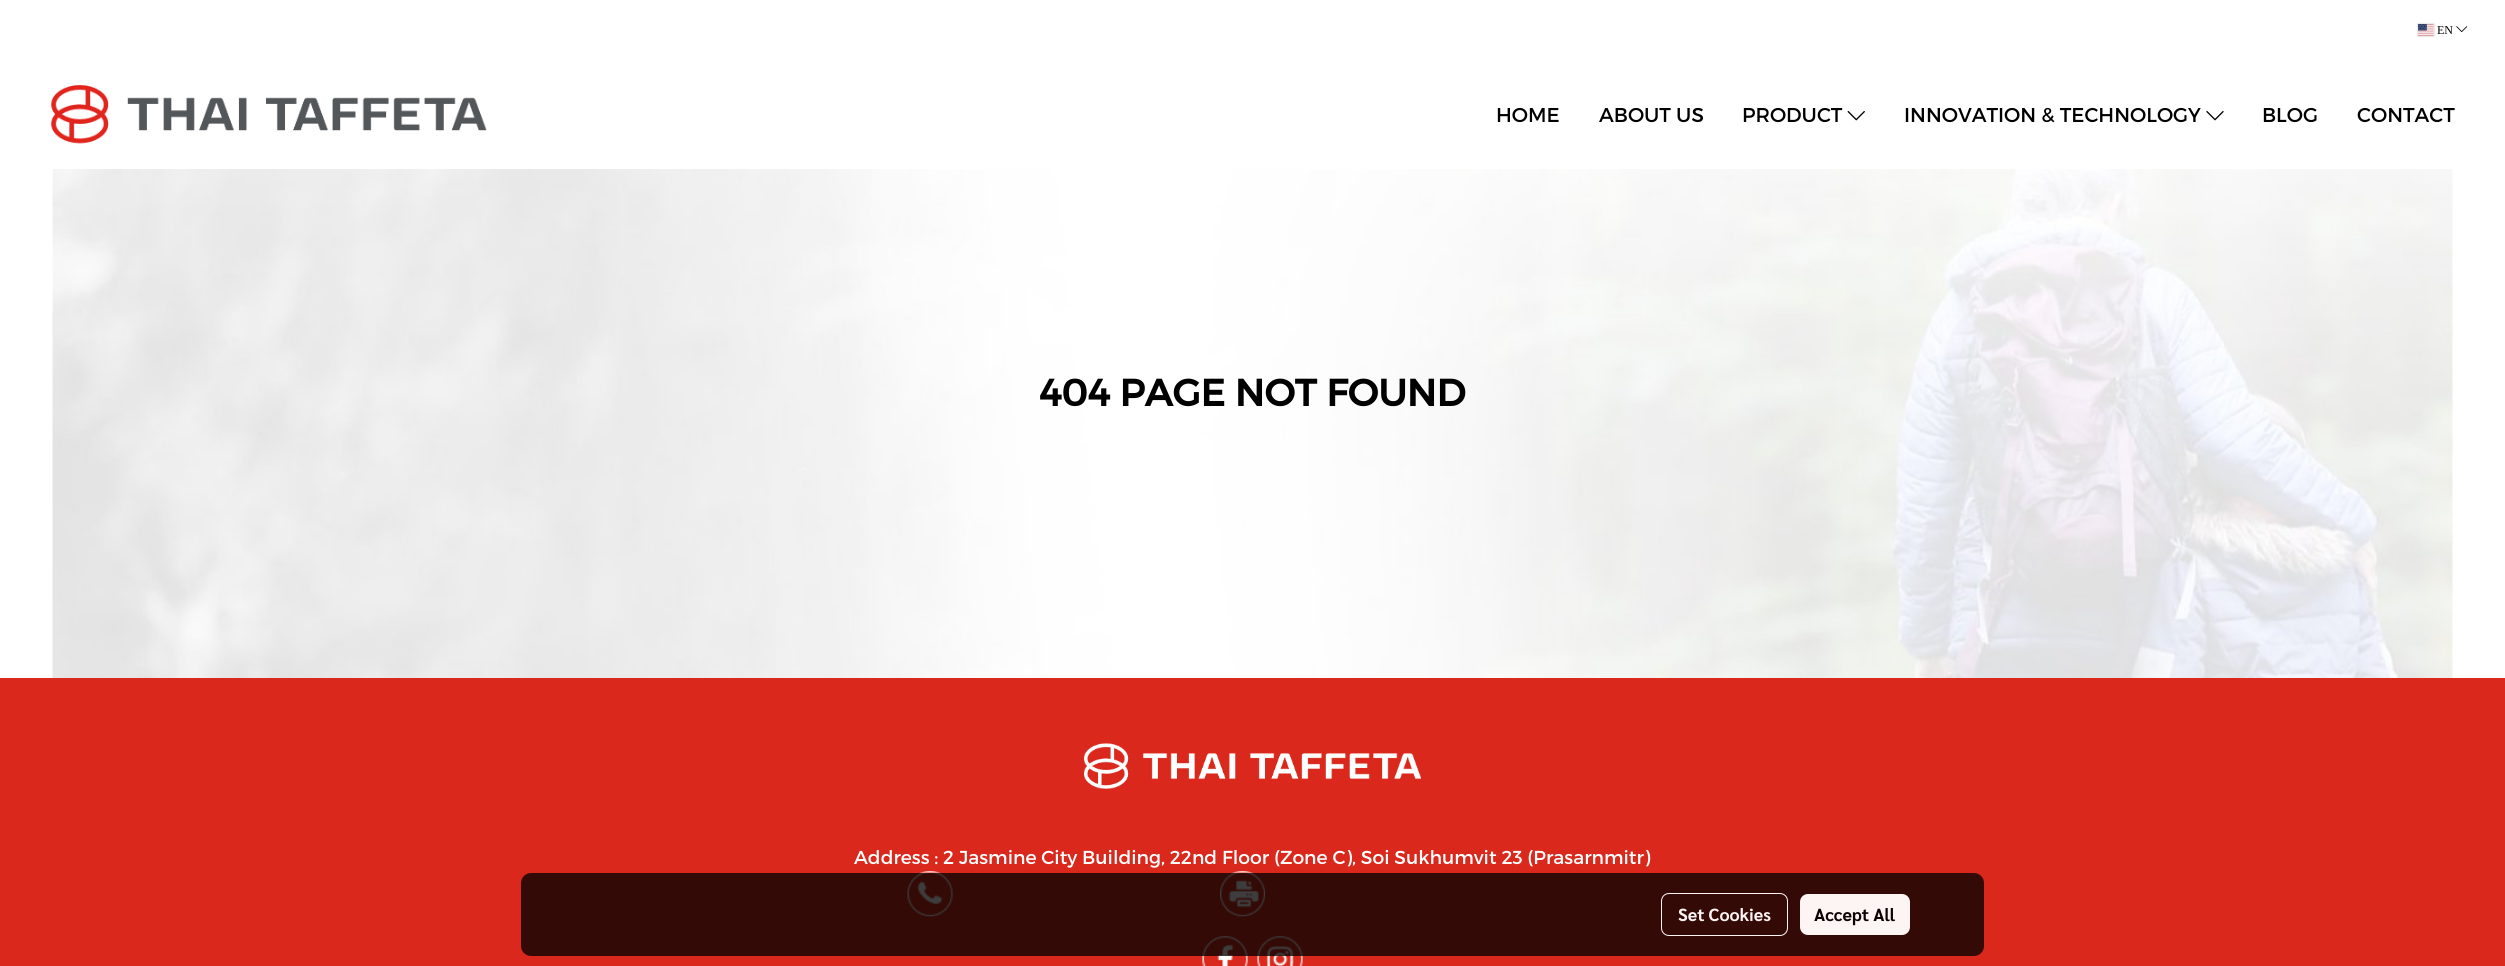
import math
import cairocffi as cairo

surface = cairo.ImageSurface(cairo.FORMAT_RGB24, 2505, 966)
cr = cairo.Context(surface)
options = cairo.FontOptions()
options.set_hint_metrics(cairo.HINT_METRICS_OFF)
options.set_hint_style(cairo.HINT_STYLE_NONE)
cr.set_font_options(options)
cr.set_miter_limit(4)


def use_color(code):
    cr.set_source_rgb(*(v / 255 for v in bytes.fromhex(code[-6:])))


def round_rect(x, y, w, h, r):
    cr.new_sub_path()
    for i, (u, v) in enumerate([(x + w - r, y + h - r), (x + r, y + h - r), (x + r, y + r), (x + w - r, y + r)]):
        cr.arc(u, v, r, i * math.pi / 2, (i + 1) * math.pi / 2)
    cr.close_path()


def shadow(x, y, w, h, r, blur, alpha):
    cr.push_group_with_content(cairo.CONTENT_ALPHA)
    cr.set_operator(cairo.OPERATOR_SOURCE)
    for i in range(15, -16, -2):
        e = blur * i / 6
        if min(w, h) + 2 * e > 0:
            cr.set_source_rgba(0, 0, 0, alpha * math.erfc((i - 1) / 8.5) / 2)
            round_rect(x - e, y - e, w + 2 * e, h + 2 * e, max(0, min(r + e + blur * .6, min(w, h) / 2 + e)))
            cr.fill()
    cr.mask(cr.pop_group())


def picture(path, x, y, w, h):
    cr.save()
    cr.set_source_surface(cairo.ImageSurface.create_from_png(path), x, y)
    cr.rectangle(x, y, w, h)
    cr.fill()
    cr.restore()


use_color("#ffffff")
cr.paint()
picture("img1.png", 52, 169, 2401, 509)
cr.save()
cr.set_fill_rule(cairo.FILL_RULE_EVEN_ODD)
cr.new_path()
cr.move_to(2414, 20)
cr.line_to(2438, 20)
cr.line_to(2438, 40)
cr.line_to(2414, 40)
cr.close_path()
cr.move_to(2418, 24)
cr.line_to(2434, 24)
cr.line_to(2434, 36)
cr.line_to(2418, 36)
cr.close_path()
cr.clip()
use_color("#000000")
shadow(2418, 24, 16, 12, 0, 1, 0.25)
cr.restore()
picture("img2.png", 2418, 24, 16, 12)
cr.select_font_face("Liberation Serif")
cr.set_font_size(12)
use_color("#000000")
cr.move_to(2437, 34)
cr.show_text("EN")
picture("img3.png", 2456, 26, 12, 7)
picture("img4.png", 51, 85, 436, 59)
cr.select_font_face("Montserrat")
cr.set_font_size(20)
cr.move_to(1496, 122)
cr.show_text("HOME")
cr.move_to(1599, 122)
cr.show_text("ABOUT US")
cr.move_to(1742, 122)
cr.show_text("PRODUCT")
picture("img5.png", 1847, 111, 18, 10)
cr.move_to(1904, 122)
cr.show_text("INNOVATION & TECHNOLOGY")
picture("img6.png", 2206, 111, 18, 10)
cr.move_to(2262, 122)
cr.show_text("BLOG")
cr.move_to(2357, 122)
cr.show_text("CONTACT")
cr.select_font_face("Montserrat", cairo.FONT_SLANT_NORMAL, cairo.FONT_WEIGHT_BOLD)
cr.set_font_size(37.5)
cr.move_to(1039, 406)
cr.show_text("404 PAGE NOT FOUND")
use_color("#da291c")
cr.rectangle(0, 678, 2505, 288)
cr.fill()
picture("img7.png", 1084, 743, 337, 46)
cr.select_font_face("Montserrat")
cr.set_font_size(18.75)
use_color("#ffffff")
cr.move_to(854, 864)
cr.show_text("Address : 2 Jasmine City Building, 22nd Floor (Zone C), Soi Sukhumvit 23 (Prasarnmitr)")
picture("img8.png", 907, 871, 46, 46)
picture("img9.png", 1220, 871, 45, 46)
picture("img10.png", 1202, 936, 46, 30)
picture("img11.png", 1257, 936, 46, 30)
cr.set_source_rgba(0, 0, 0, 0.76)
round_rect(521, 873, 1463, 83, 10)
cr.fill()
round_rect(1661.5, 893.5, 126, 42, 7.5)
use_color("#fdf4f4")
cr.set_line_width(1)
cr.stroke()
cr.select_font_face("Sarabun", cairo.FONT_SLANT_NORMAL, cairo.FONT_WEIGHT_BOLD)
cr.set_font_size(17.5)
cr.move_to(1678, 921)
cr.show_text("Set Cookies")
round_rect(1800, 894, 110, 41, 8)
cr.fill()
use_color("#0b0201")
cr.move_to(1814, 921)
cr.show_text("Accept All")
surface.write_to_png("result.png")
